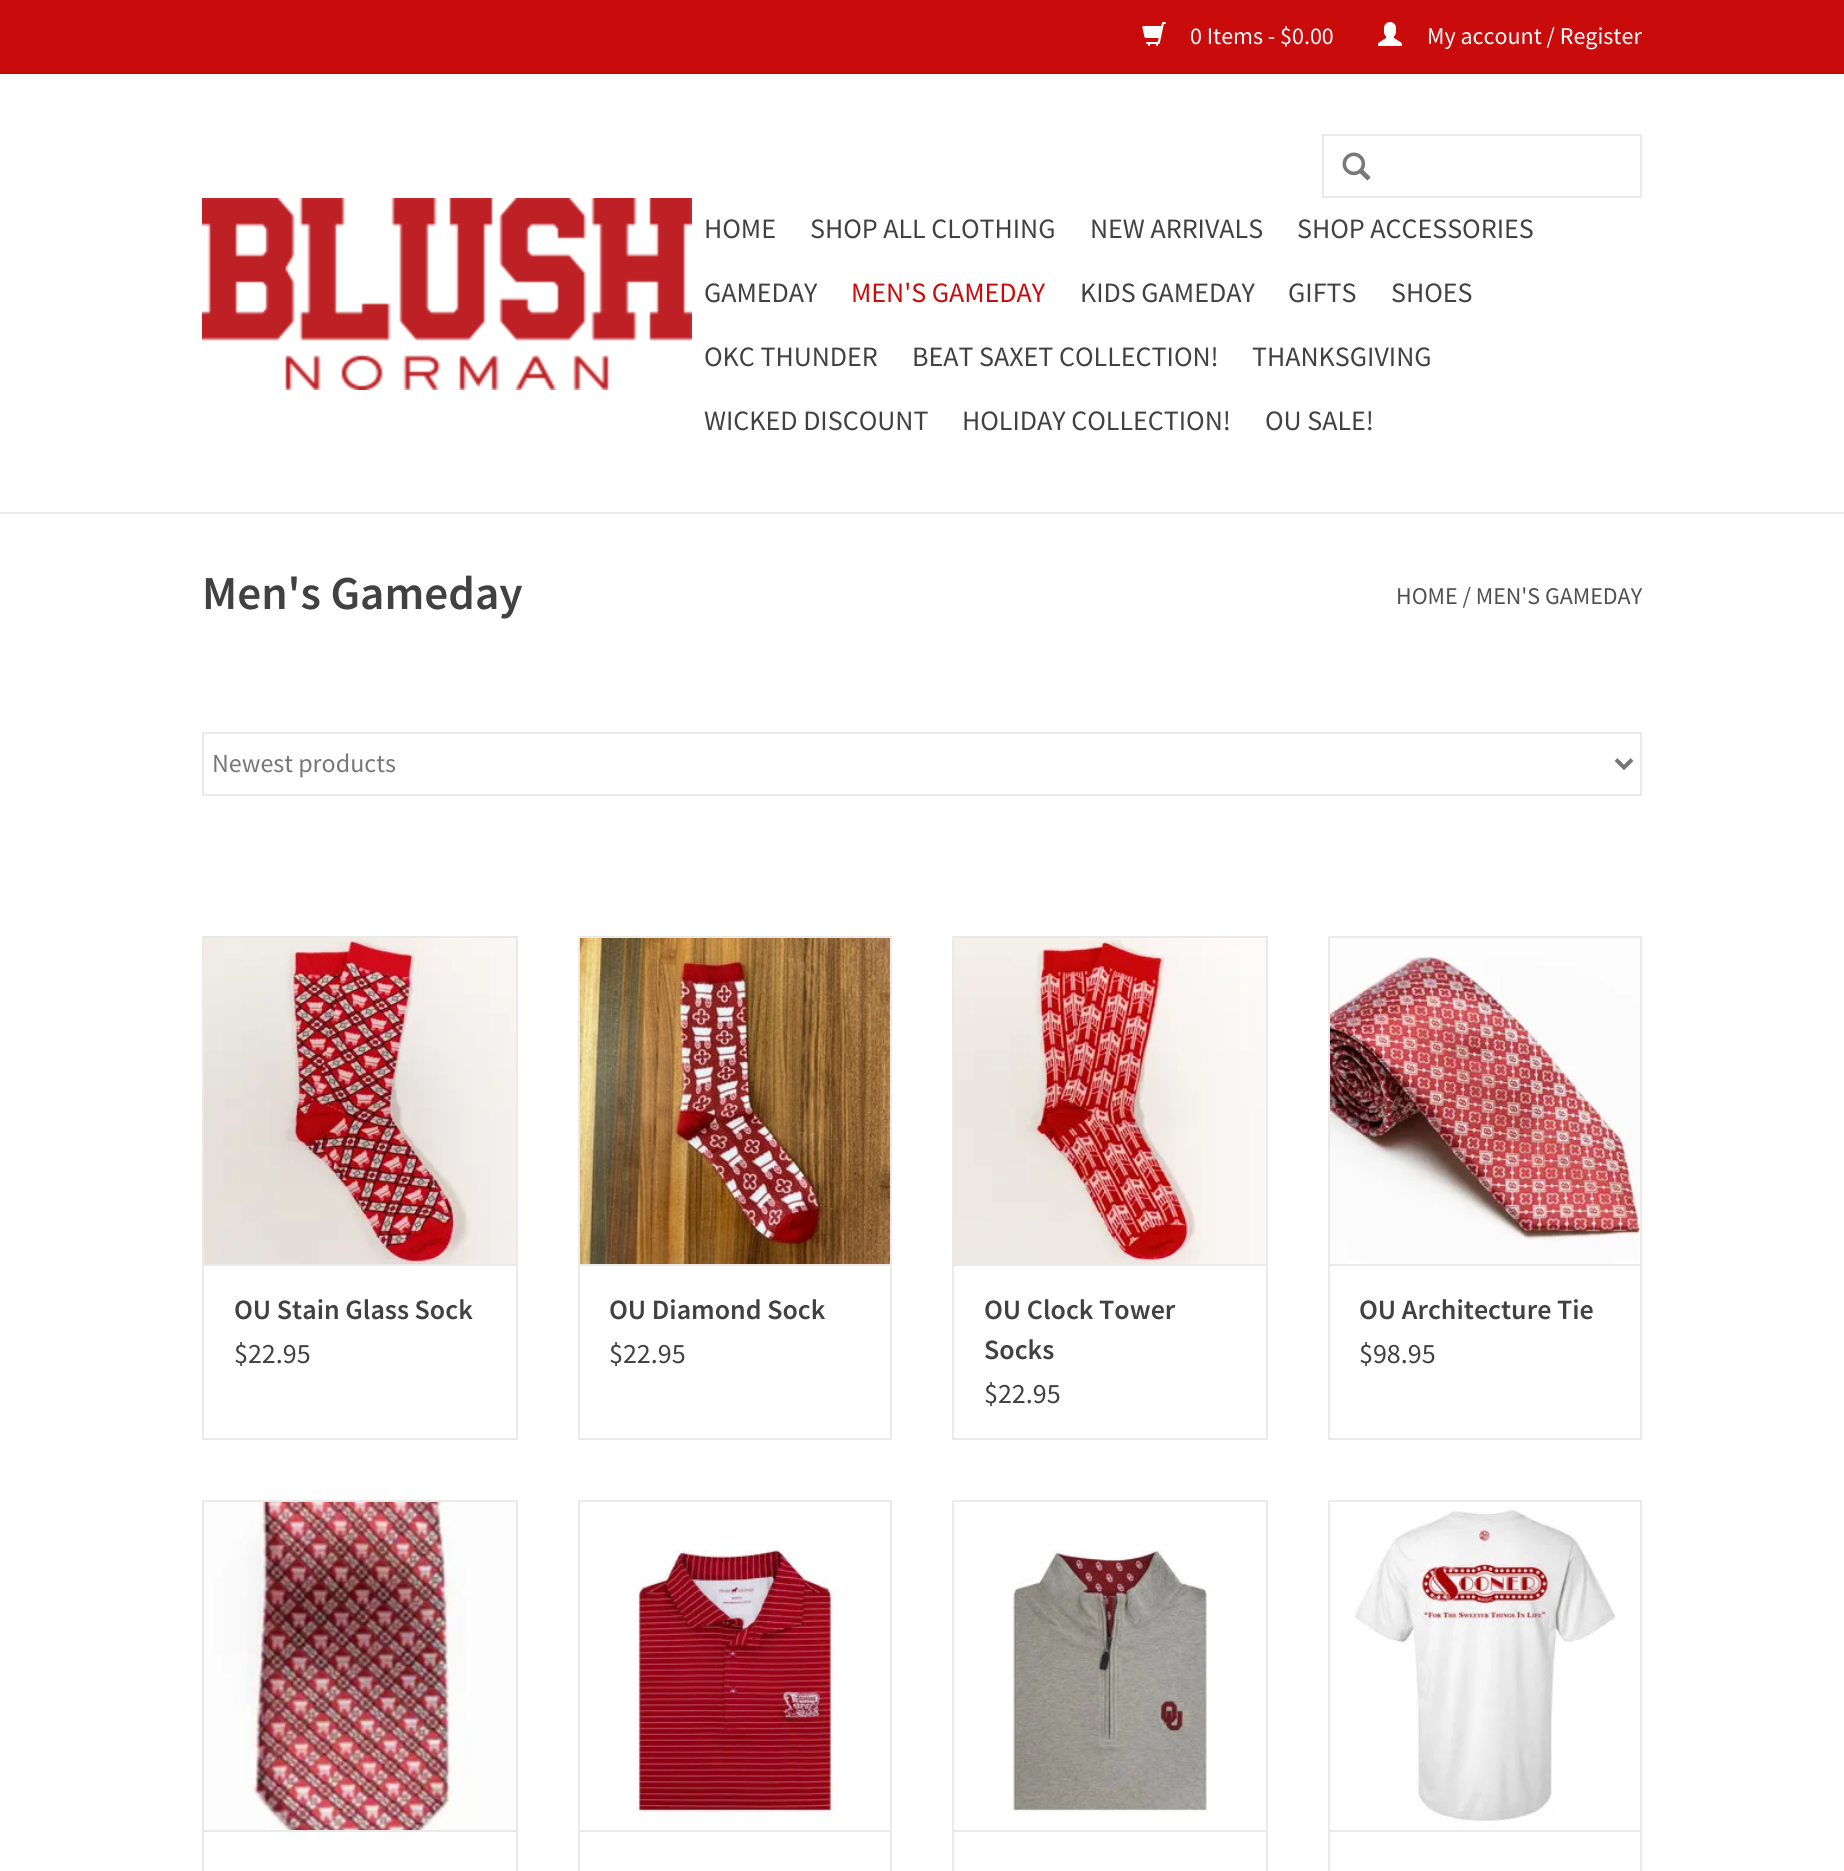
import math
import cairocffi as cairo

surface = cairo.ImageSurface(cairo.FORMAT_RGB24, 1844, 1871)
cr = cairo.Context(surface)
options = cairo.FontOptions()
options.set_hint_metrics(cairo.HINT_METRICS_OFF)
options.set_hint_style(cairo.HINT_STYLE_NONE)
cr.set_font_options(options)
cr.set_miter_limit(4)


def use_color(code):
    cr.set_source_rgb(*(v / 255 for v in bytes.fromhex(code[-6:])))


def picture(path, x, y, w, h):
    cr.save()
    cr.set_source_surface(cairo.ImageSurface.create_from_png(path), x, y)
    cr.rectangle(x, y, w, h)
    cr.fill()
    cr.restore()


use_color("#ffffff")
cr.paint()
use_color("#eaeaea")
cr.rectangle(0, 512, 1844, 2)
cr.fill()
use_color("#ca0b0b")
cr.rectangle(0, 0, 1844, 72)
cr.fill()
use_color("#bb0a0a")
cr.rectangle(0, 72, 1844, 2)
cr.fill()
picture("img1.png", 1142, 22, 24, 24)
cr.select_font_face("Source Sans Pro")
cr.set_font_size(24)
use_color("#ffffff")
cr.move_to(1190, 44)
cr.show_text("0 Items - $0.00")
picture("img2.png", 1378, 22, 24, 24)
cr.move_to(1427, 44)
cr.show_text("My account / Register")
picture("img3.png", 202, 198, 490, 192)
cr.rectangle(1323, 135, 318, 62)
use_color("#eaeaea")
cr.stroke()
picture("img4.png", 1342, 152, 29, 29)
cr.set_font_size(28)
use_color("#414141")
cr.move_to(704, 238)
cr.show_text("HOME")
cr.move_to(810, 238)
cr.show_text("SHOP ALL CLOTHING")
cr.move_to(1090, 238)
cr.show_text("NEW ARRIVALS")
cr.move_to(1297, 238)
cr.show_text("SHOP ACCESSORIES")
cr.move_to(704, 302)
cr.show_text("GAMEDAY")
use_color("#ca0b0b")
cr.move_to(851, 302)
cr.show_text("MEN'S GAMEDAY")
use_color("#414141")
cr.move_to(1080, 302)
cr.show_text("KIDS GAMEDAY")
cr.move_to(1288, 302)
cr.show_text("GIFTS")
cr.move_to(1391, 302)
cr.show_text("SHOES")
cr.move_to(704, 366)
cr.show_text("OKC THUNDER")
cr.move_to(912, 366)
cr.show_text("BEAT SAXET COLLECTION!")
cr.move_to(1252, 366)
cr.show_text("THANKSGIVING")
cr.move_to(704, 430)
cr.show_text("WICKED DISCOUNT")
cr.move_to(962, 430)
cr.show_text("HOLIDAY COLLECTION!")
cr.move_to(1265, 430)
cr.show_text("OU SALE!")
cr.select_font_face("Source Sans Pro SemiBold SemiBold")
cr.set_font_size(47.25)
cr.move_to(202, 609)
cr.show_text("Men's Gameday")
cr.select_font_face("Source Sans Pro")
cr.set_font_size(24)
use_color("#505050")
cr.move_to(1396, 604)
cr.show_text("HOME / MEN'S GAMEDAY")
cr.rectangle(203, 733, 1438, 62)
use_color("#eaeaea")
cr.stroke()
cr.new_path()
cr.move_to(1616, 759.5)
cr.line_to(1624, 767.5)
cr.line_to(1632, 759.5)
use_color("#777777")
cr.set_line_width(4)
cr.stroke()
cr.set_font_size(26)
cr.move_to(212, 772)
cr.show_text("Newest products")
use_color("#eaeaea")
cr.rectangle(202, 936, 316, 2)
cr.fill()
cr.rectangle(516, 936, 2, 328)
cr.fill()
cr.rectangle(202, 936, 2, 328)
cr.fill()
picture("img5.png", 204, 938, 312, 326)
cr.rectangle(203, 1265, 314, 174)
cr.set_line_width(2)
cr.stroke()
cr.select_font_face("Source Sans Pro SemiBold SemiBold")
cr.set_font_size(28)
use_color("#414141")
cr.move_to(234, 1319)
cr.show_text("OU Stain Glass Sock")
cr.select_font_face("Source Sans Pro")
cr.move_to(234, 1363)
cr.show_text("$22.95")
use_color("#eaeaea")
cr.rectangle(578, 936, 314, 2)
cr.fill()
cr.rectangle(890, 936, 2, 328)
cr.fill()
cr.rectangle(578, 936, 2, 328)
cr.fill()
picture("img6.png", 580, 938, 310, 326)
cr.rectangle(579, 1265, 312, 174)
cr.stroke()
cr.select_font_face("Source Sans Pro SemiBold SemiBold")
use_color("#414141")
cr.move_to(609, 1319)
cr.show_text("OU Diamond Sock")
cr.select_font_face("Source Sans Pro")
cr.move_to(609, 1363)
cr.show_text("$22.95")
use_color("#eaeaea")
cr.rectangle(952, 936, 316, 2)
cr.fill()
cr.rectangle(1266, 936, 2, 328)
cr.fill()
cr.rectangle(952, 936, 2, 328)
cr.fill()
picture("img7.png", 954, 938, 312, 326)
cr.rectangle(953, 1265, 314, 174)
cr.stroke()
cr.select_font_face("Source Sans Pro SemiBold SemiBold")
use_color("#414141")
cr.move_to(984, 1319)
cr.show_text("OU Clock Tower")
cr.move_to(984, 1359)
cr.show_text("Socks")
cr.select_font_face("Source Sans Pro")
cr.move_to(984, 1403)
cr.show_text("$22.95")
use_color("#eaeaea")
cr.rectangle(1328, 936, 314, 2)
cr.fill()
cr.rectangle(1640, 936, 2, 328)
cr.fill()
cr.rectangle(1328, 936, 2, 328)
cr.fill()
picture("img8.png", 1330, 938, 310, 326)
cr.rectangle(1329, 1265, 312, 174)
cr.stroke()
cr.select_font_face("Source Sans Pro SemiBold SemiBold")
use_color("#414141")
cr.move_to(1359, 1319)
cr.show_text("OU Architecture Tie")
cr.select_font_face("Source Sans Pro")
cr.move_to(1359, 1363)
cr.show_text("$98.95")
use_color("#eaeaea")
cr.rectangle(202, 1500, 316, 2)
cr.fill()
cr.rectangle(516, 1500, 2, 330)
cr.fill()
cr.rectangle(202, 1500, 2, 330)
cr.fill()
picture("img9.png", 204, 1502, 312, 328)
cr.rectangle(203, 1831, 314, 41)
cr.stroke()
cr.rectangle(578, 1500, 314, 2)
cr.fill()
cr.rectangle(890, 1500, 2, 330)
cr.fill()
cr.rectangle(578, 1500, 2, 330)
cr.fill()
picture("img10.png", 580, 1502, 310, 328)
cr.rectangle(579, 1831, 312, 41)
cr.stroke()
cr.rectangle(952, 1500, 316, 2)
cr.fill()
cr.rectangle(1266, 1500, 2, 330)
cr.fill()
cr.rectangle(952, 1500, 2, 330)
cr.fill()
picture("img11.png", 954, 1502, 312, 328)
cr.rectangle(953, 1831, 314, 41)
cr.stroke()
cr.rectangle(1328, 1500, 314, 2)
cr.fill()
cr.rectangle(1640, 1500, 2, 330)
cr.fill()
cr.rectangle(1328, 1500, 2, 330)
cr.fill()
picture("img12.png", 1330, 1502, 310, 328)
cr.rectangle(1329, 1831, 312, 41)
cr.stroke()
surface.write_to_png("result.png")
